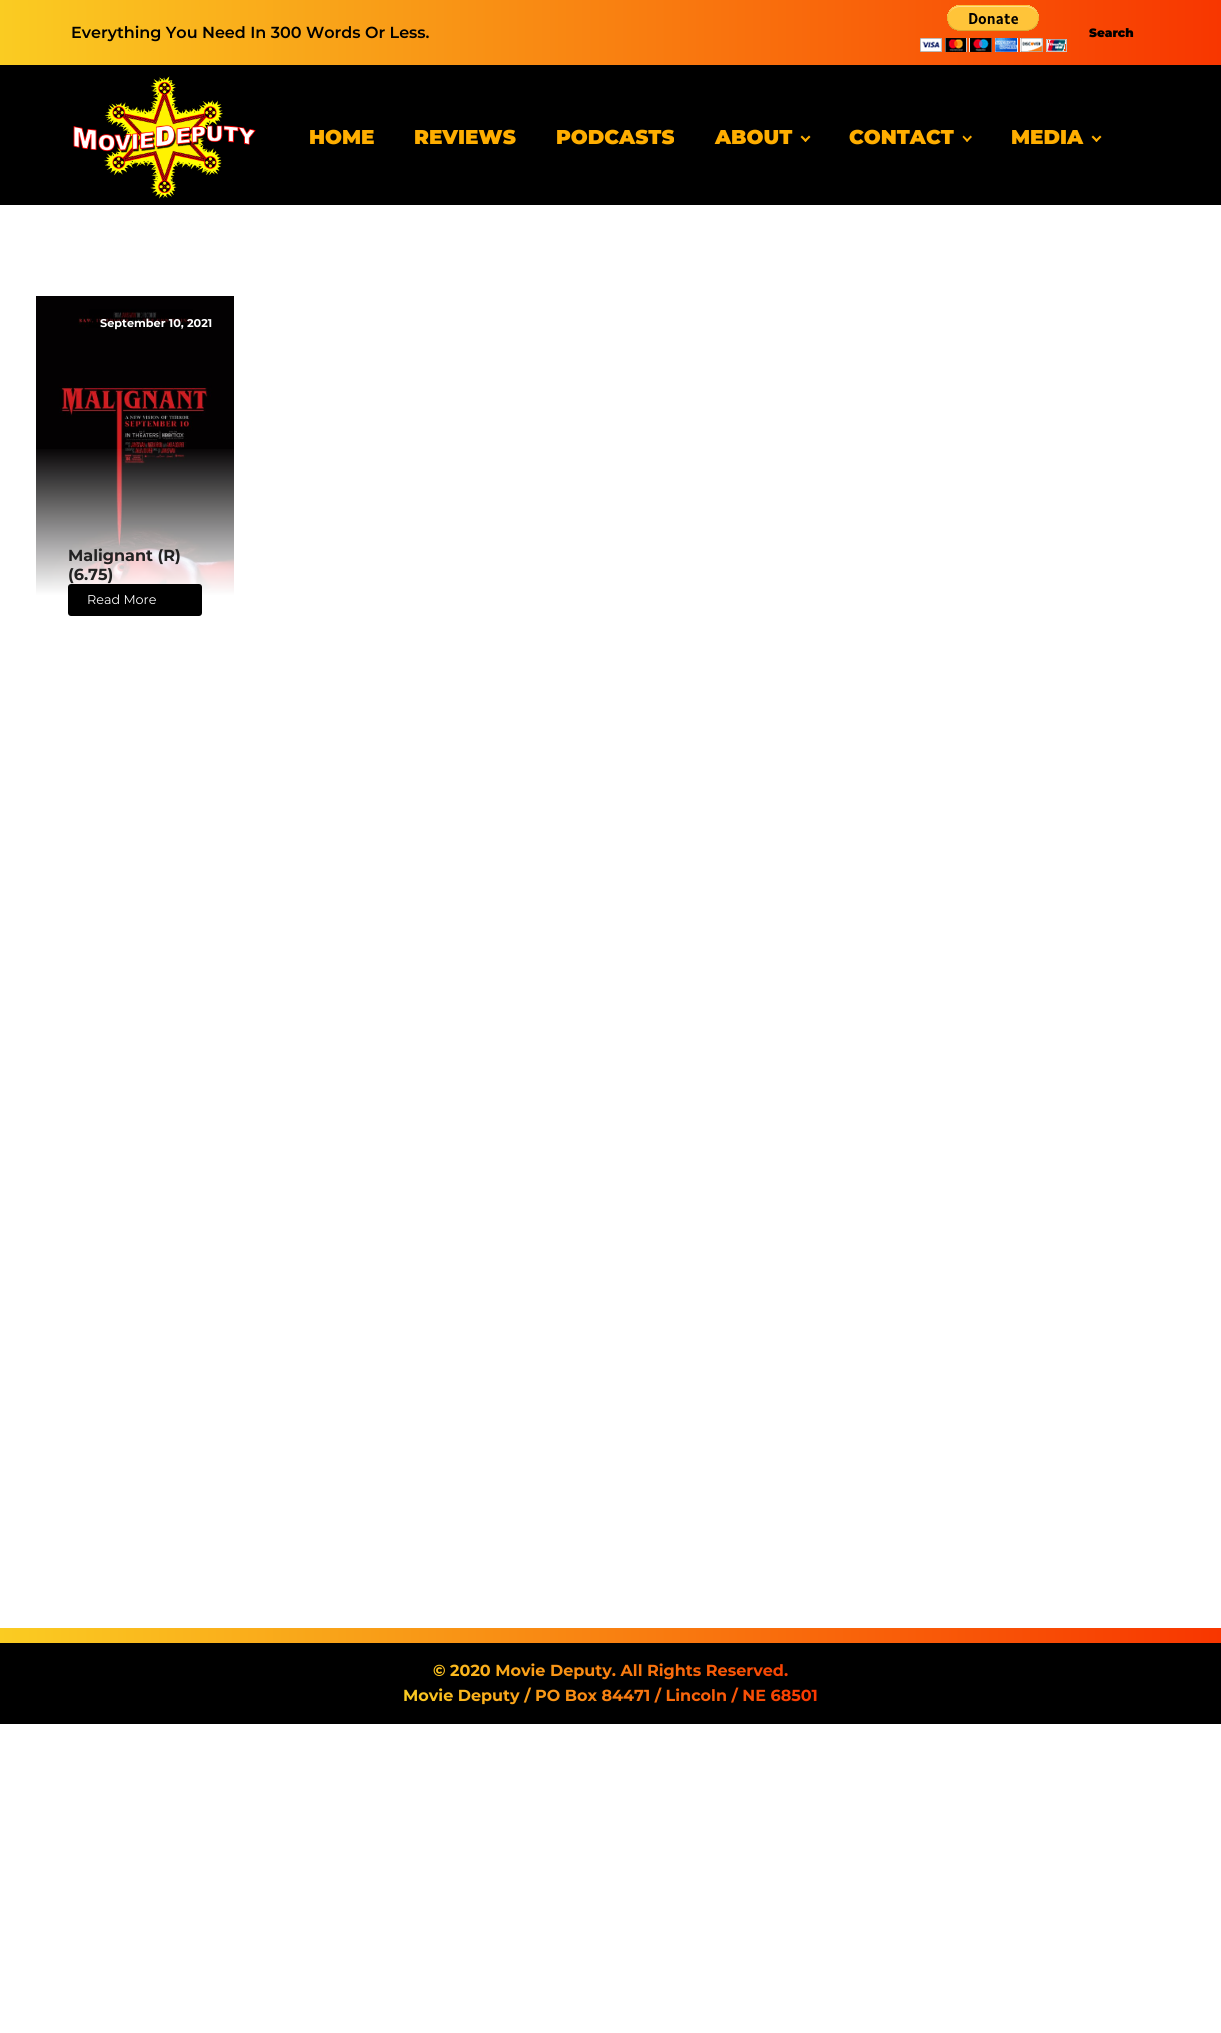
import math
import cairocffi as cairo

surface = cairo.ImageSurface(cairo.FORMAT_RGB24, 1221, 2033)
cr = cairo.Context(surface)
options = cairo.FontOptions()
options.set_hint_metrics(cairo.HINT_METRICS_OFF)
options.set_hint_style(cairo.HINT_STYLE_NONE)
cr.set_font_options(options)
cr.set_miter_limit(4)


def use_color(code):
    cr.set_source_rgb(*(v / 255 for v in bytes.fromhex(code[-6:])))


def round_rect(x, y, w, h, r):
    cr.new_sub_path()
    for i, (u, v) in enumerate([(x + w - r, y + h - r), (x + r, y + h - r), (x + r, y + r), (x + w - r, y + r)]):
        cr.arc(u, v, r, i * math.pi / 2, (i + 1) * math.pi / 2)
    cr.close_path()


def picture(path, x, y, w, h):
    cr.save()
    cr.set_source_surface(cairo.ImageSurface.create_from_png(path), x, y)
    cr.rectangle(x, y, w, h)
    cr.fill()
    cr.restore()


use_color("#ffffff")
cr.paint()
gradient = cairo.LinearGradient(0, 33, 1221, 32)
gradient.add_color_stop_rgba(0, 0.98, 0.8, 0.133, 1)
gradient.add_color_stop_rgba(1, 0.973, 0.212, 0, 1)
cr.set_source(gradient)
cr.rectangle(0, 0, 1221, 65)
cr.fill()
cr.select_font_face("Montserrat SemiBold")
cr.set_font_size(16)
use_color("#000000")
cr.move_to(71, 38)
cr.show_text("Everything You Need In 300 Words Or Less.")
picture("img1.png", 920, 5, 147, 47)
cr.select_font_face("Montserrat Black")
cr.set_font_size(12)
cr.move_to(1089, 37)
cr.show_text("Search")
cr.rectangle(0, 65, 1221, 140)
cr.fill()
picture("img2.png", 73, 76, 183, 123)
cr.set_font_size(20)
use_color("#ffae00")
cr.move_to(309, 144)
cr.show_text("HOME")
cr.move_to(414, 144)
cr.show_text("REVIEWS")
cr.move_to(556, 144)
cr.show_text("PODCASTS")
cr.move_to(715, 144)
cr.show_text("ABOUT")
cr.new_path()
cr.move_to(810.5, 137)
cr.line_to(805.5, 142)
cr.line_to(804, 140.5)
cr.line_to(809, 135.5)
cr.close_path()
cr.fill()
cr.new_path()
cr.move_to(807, 140.5)
cr.line_to(805.5, 142)
cr.line_to(800.5, 137)
cr.line_to(802, 135.5)
cr.close_path()
cr.fill()
cr.move_to(849, 144)
cr.show_text("CONTACT")
cr.new_path()
cr.move_to(972, 137)
cr.line_to(967, 142)
cr.line_to(966, 140.5)
cr.line_to(970.5, 135.5)
cr.close_path()
cr.fill()
cr.new_path()
cr.move_to(968.5, 140.5)
cr.line_to(967, 142)
cr.line_to(962.5, 137)
cr.line_to(963.5, 135.5)
cr.close_path()
cr.fill()
cr.move_to(1011, 144)
cr.show_text("MEDIA")
cr.new_path()
cr.move_to(1101.5, 137)
cr.line_to(1096.5, 142)
cr.line_to(1095, 140.5)
cr.line_to(1100, 135.5)
cr.close_path()
cr.fill()
cr.new_path()
cr.move_to(1098, 140.5)
cr.line_to(1096.5, 142)
cr.line_to(1091.5, 137)
cr.line_to(1093, 135.5)
cr.close_path()
cr.fill()
picture("img3.png", 36, 296, 198, 299)
cr.set_source_rgba(0, 0, 0, 0.5)
cr.rectangle(89, 309, 104, 19)
cr.fill()
cr.select_font_face("Montserrat", cairo.FONT_SLANT_NORMAL, cairo.FONT_WEIGHT_BOLD)
cr.set_font_size(11.25)
use_color("#ffffff")
cr.move_to(100, 327)
cr.show_text("September 10, 2021")
gradient = cairo.LinearGradient(135, 446, 135, 648)
gradient.add_color_stop_rgba(0, 1, 1, 1, 0)
gradient.add_color_stop_rgba(0.74, 1, 1, 1, 1)
cr.set_source(gradient)
cr.rectangle(36, 449, 198, 146)
cr.fill()
cr.set_font_size(16)
use_color("#222222")
cr.move_to(68, 561)
cr.show_text("Malignant (R)")
cr.move_to(68, 580)
cr.show_text("(6.75)")
use_color("#000000")
round_rect(68, 584, 134, 32, 3)
cr.fill()
cr.select_font_face("Montserrat")
cr.set_font_size(12.75)
use_color("#ffffff")
cr.move_to(87, 604)
cr.show_text("Read More")
gradient = cairo.LinearGradient(1221, 1636, 0, 1636)
gradient.add_color_stop_rgba(0, 0.973, 0.212, 0, 1)
gradient.add_color_stop_rgba(1, 0.98, 0.8, 0.133, 1)
cr.set_source(gradient)
cr.rectangle(0, 1628, 1221, 15)
cr.fill()
use_color("#000000")
cr.rectangle(0, 1643, 1221, 81)
cr.fill()
cr.select_font_face("Montserrat", cairo.FONT_SLANT_NORMAL, cairo.FONT_WEIGHT_BOLD)
cr.set_font_size(16)
gradient = cairo.LinearGradient(403, 1683, 818, 1683)
gradient.add_color_stop_rgba(0, 0.98, 0.8, 0.133, 1)
gradient.add_color_stop_rgba(1, 0.973, 0.212, 0, 1)
cr.set_source(gradient)
cr.move_to(433, 1676)
cr.show_text("© 2020 Movie Deputy. All Rights Reserved.")
cr.move_to(403, 1701)
cr.show_text("Movie Deputy / PO Box 84471 / Lincoln / NE 68501")
surface.write_to_png("result.png")
